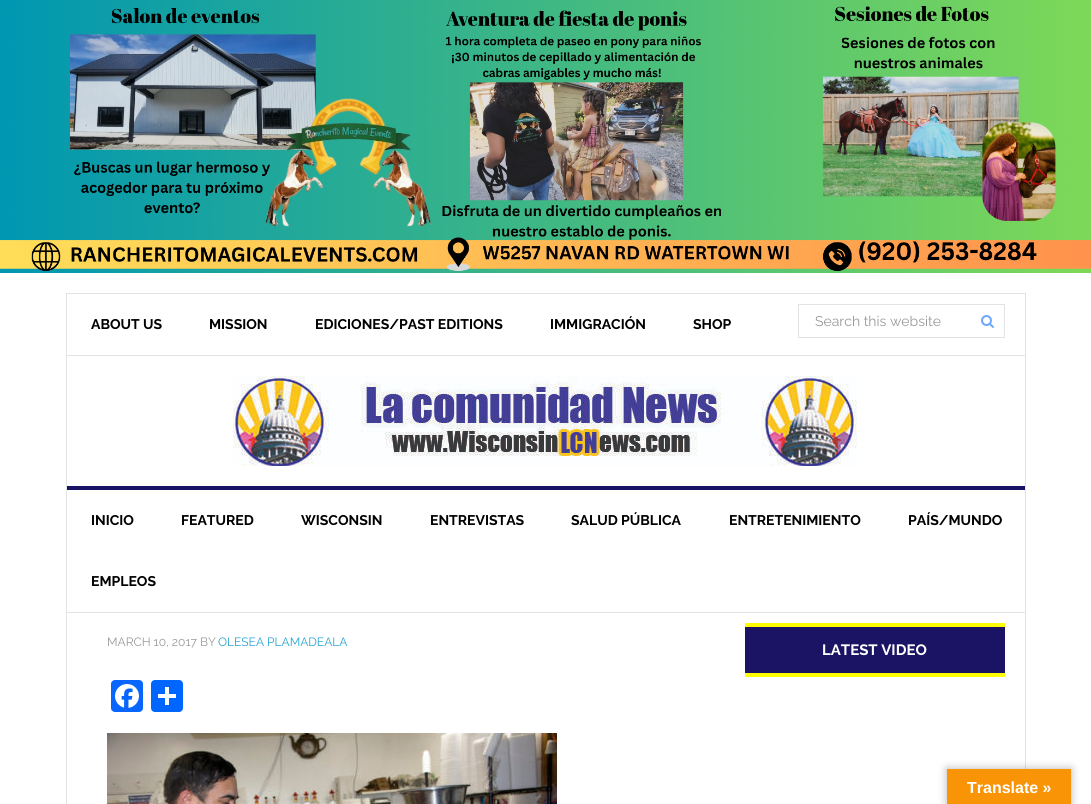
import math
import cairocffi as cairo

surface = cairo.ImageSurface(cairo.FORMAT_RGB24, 1091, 804)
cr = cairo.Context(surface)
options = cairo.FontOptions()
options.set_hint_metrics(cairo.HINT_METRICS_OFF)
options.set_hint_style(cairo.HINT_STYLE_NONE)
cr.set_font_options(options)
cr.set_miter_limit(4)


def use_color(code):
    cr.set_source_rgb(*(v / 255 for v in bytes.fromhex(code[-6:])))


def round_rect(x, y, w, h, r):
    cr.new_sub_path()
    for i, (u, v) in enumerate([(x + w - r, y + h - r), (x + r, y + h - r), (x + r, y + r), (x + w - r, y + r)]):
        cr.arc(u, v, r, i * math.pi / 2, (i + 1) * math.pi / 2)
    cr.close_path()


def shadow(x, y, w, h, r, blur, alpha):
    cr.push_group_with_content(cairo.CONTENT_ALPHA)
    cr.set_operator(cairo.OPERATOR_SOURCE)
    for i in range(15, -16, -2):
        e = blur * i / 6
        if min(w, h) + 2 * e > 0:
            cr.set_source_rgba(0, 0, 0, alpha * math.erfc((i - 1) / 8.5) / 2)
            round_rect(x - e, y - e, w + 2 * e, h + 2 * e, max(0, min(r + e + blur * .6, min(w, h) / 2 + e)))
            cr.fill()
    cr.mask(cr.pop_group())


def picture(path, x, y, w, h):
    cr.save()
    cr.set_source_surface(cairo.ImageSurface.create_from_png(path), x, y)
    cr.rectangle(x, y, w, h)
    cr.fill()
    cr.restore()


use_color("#ffffff")
cr.paint()
picture("img1.png", 0, 0, 1091, 273)
cr.rectangle(66.5, 293.5, 959, 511)
use_color("#e3e3e3")
cr.set_line_width(1)
cr.stroke()
cr.rectangle(67, 355, 958, 1)
cr.fill()
cr.select_font_face("Raleway", cairo.FONT_SLANT_NORMAL, cairo.FONT_WEIGHT_BOLD)
cr.set_font_size(14)
use_color("#000000")
cr.move_to(91, 329)
cr.show_text("ABOUT US")
cr.move_to(209, 329)
cr.show_text("MISSION")
cr.move_to(315, 329)
cr.show_text("EDICIONES/PAST EDITIONS")
cr.move_to(550, 329)
cr.show_text("IMMIGRACIÓN")
cr.move_to(693, 329)
cr.show_text("SHOP")
cr.rectangle(798.5, 304.5, 206, 33)
use_color("#e3e3e3")
cr.stroke()
cr.select_font_face("Raleway")
use_color("#999999")
cr.move_to(815, 326)
cr.show_text("Search this website")
picture("img2.png", 981, 315, 13, 13)
use_color("#1b1464")
cr.rectangle(67, 486, 958, 4)
cr.fill()
picture("img3.png", 233, 376, 624, 90)
use_color("#e3e3e3")
cr.rectangle(67, 612, 958, 1)
cr.fill()
cr.select_font_face("Raleway", cairo.FONT_SLANT_NORMAL, cairo.FONT_WEIGHT_BOLD)
use_color("#000000")
cr.move_to(91, 525)
cr.show_text("INICIO")
cr.move_to(181, 525)
cr.show_text("FEATURED")
cr.move_to(301, 525)
cr.show_text("WISCONSIN")
cr.move_to(430, 525)
cr.show_text("ENTREVISTAS")
cr.move_to(571, 525)
cr.show_text("SALUD PÚBLICA")
cr.move_to(729, 525)
cr.show_text("ENTRETENIMIENTO")
cr.move_to(908, 525)
cr.show_text("PAÍS/MUNDO")
cr.move_to(91, 586)
cr.show_text("EMPLEOS")
cr.select_font_face("Raleway")
cr.set_font_size(12)
use_color("#999999")
cr.move_to(107, 646)
cr.show_text("MARCH 10, 2017 BY")
use_color("#27a3d1")
cr.move_to(218, 646)
cr.show_text("OLESEA PLAMADEALA")
use_color("#0866ff")
round_rect(111, 680, 32, 32, 4)
cr.fill()
picture("img4.png", 115, 684, 24, 24)
use_color("#0166ff")
round_rect(151, 680, 32, 32, 4)
cr.fill()
use_color("#ffffff")
cr.rectangle(165, 687, 4, 18)
cr.fill()
cr.rectangle(158, 694, 18, 4)
cr.fill()
picture("img5.png", 107, 733, 450, 71)
use_color("#1b1464")
cr.rectangle(745, 627, 260, 46)
cr.fill()
use_color("#ffff00")
cr.rectangle(745, 623, 260, 4)
cr.fill()
cr.rectangle(745, 673, 260, 4)
cr.fill()
cr.select_font_face("Raleway", cairo.FONT_SLANT_NORMAL, cairo.FONT_WEIGHT_BOLD)
cr.set_font_size(15)
use_color("#ffffff")
cr.move_to(822, 655)
cr.show_text("LATEST VIDEO")
use_color("#000000")
shadow(947, 769, 124, 35, 0, 4.5, 0.3)
use_color("#f89406")
cr.rectangle(947, 769, 124, 35)
cr.fill()
cr.select_font_face("Liberation Sans", cairo.FONT_SLANT_NORMAL, cairo.FONT_WEIGHT_BOLD)
cr.set_font_size(16)
use_color("#ffffff")
cr.move_to(967, 793)
cr.show_text("Translate »")
surface.write_to_png("result.png")
